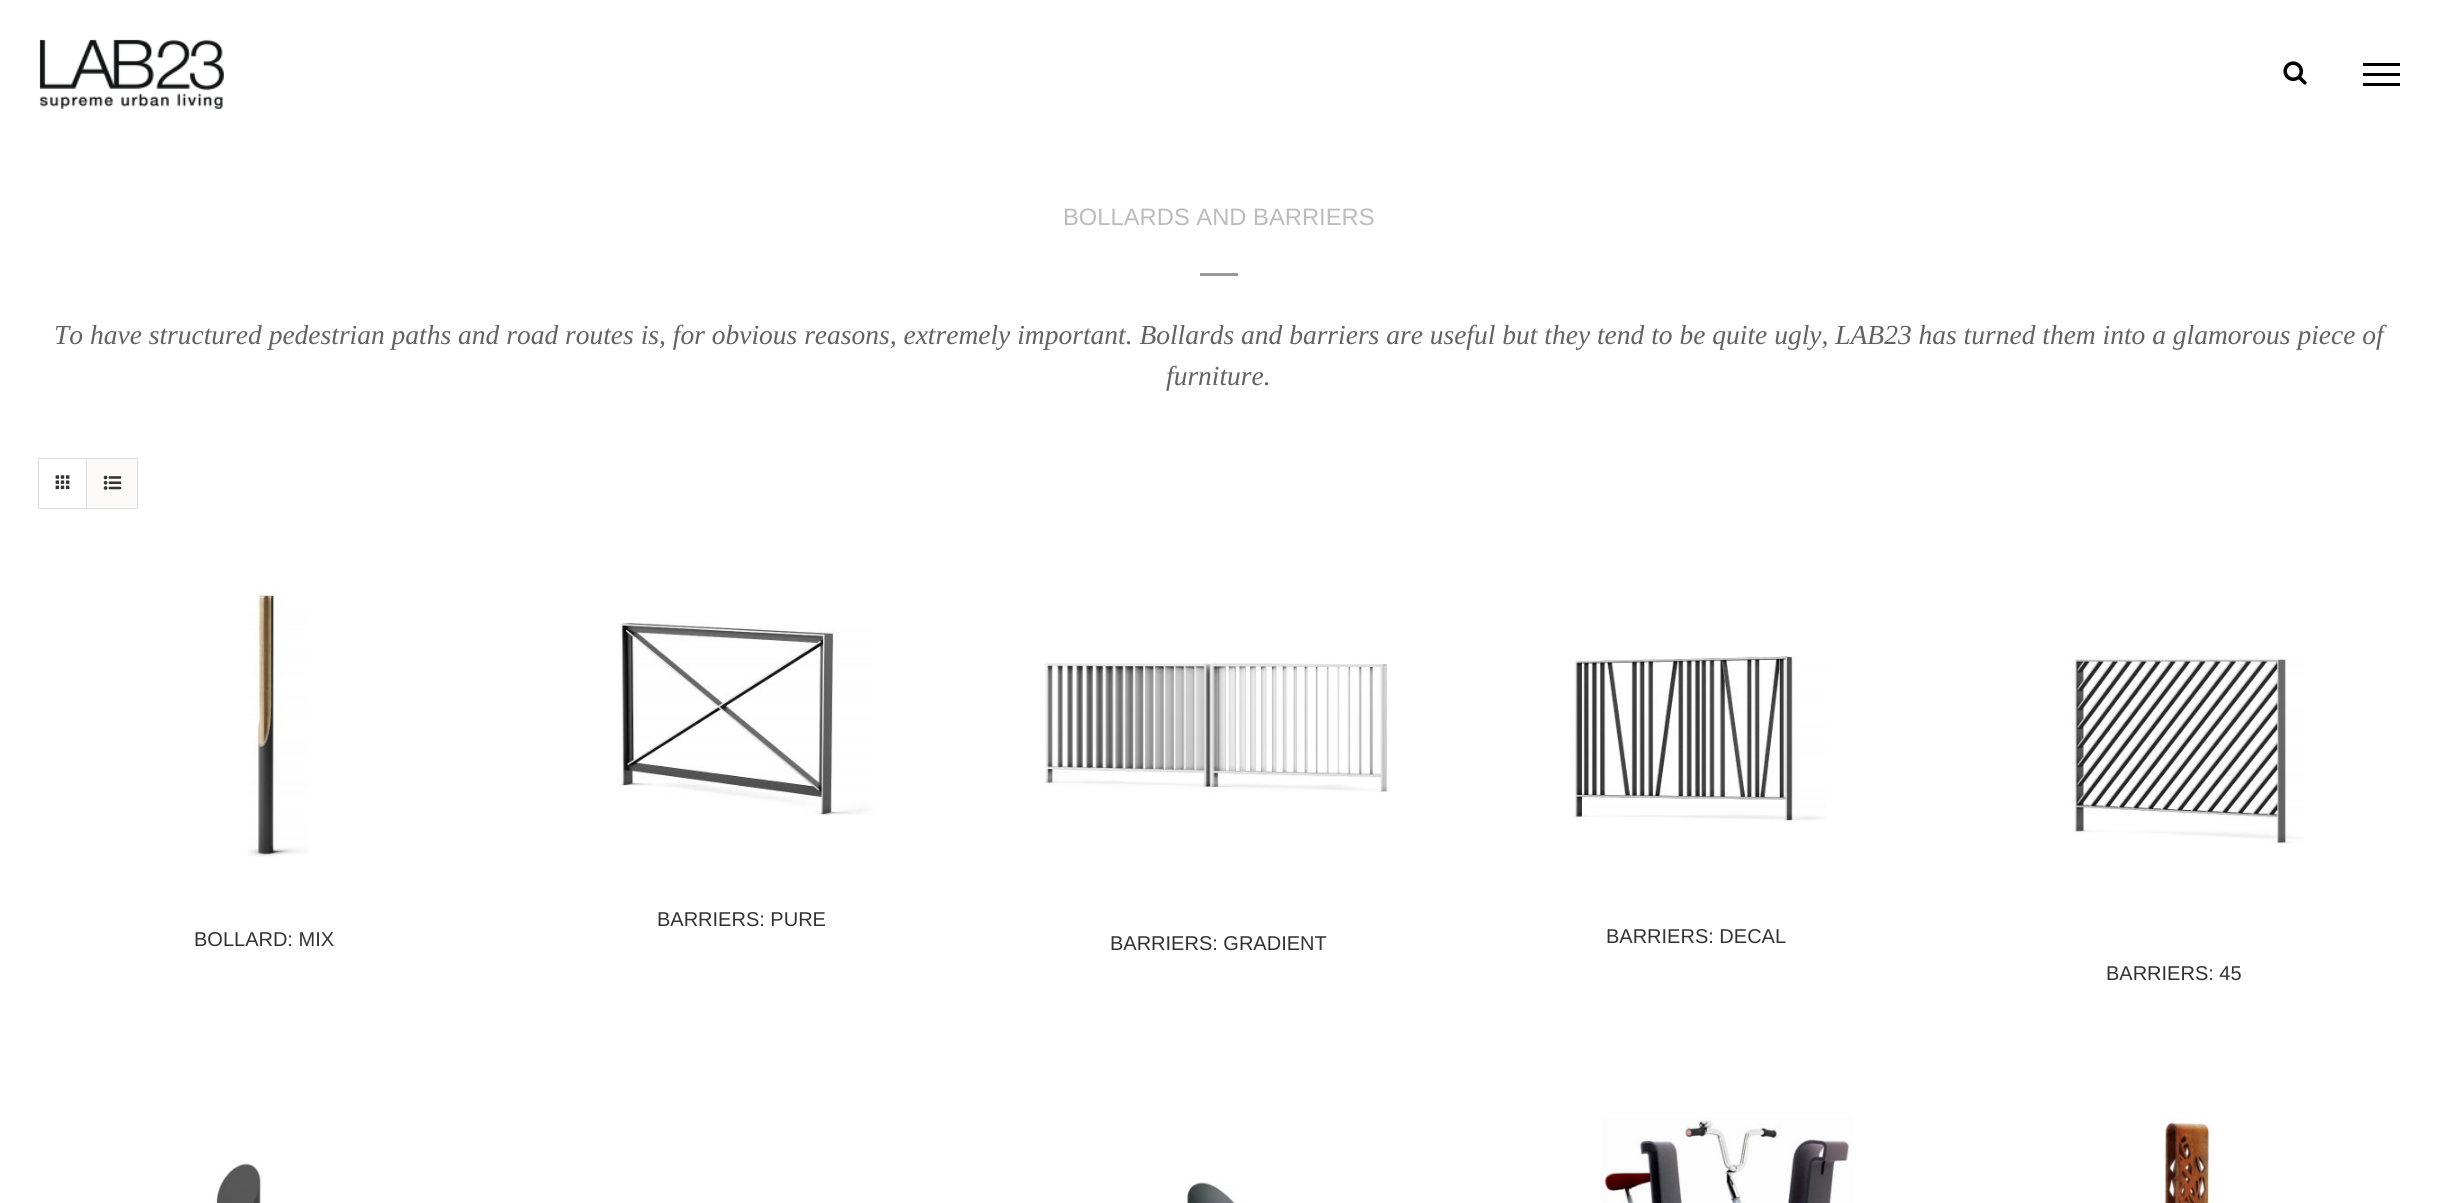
import math
import cairocffi as cairo

surface = cairo.ImageSurface(cairo.FORMAT_RGB24, 2437, 1203)
cr = cairo.Context(surface)
options = cairo.FontOptions()
options.set_hint_metrics(cairo.HINT_METRICS_OFF)
options.set_hint_style(cairo.HINT_STYLE_NONE)
cr.set_font_options(options)
cr.set_miter_limit(4)


def use_color(code):
    cr.set_source_rgb(*(v / 255 for v in bytes.fromhex(code[-6:])))


def picture(path, x, y, w, h):
    cr.save()
    cr.set_source_surface(cairo.ImageSurface.create_from_png(path), x, y)
    cr.rectangle(x, y, w, h)
    cr.fill()
    cr.restore()


use_color("#ffffff")
cr.paint()
picture("img1.png", 39, 39, 185, 70)
picture("img2.png", 2283, 61, 24, 24)
use_color("#000000")
cr.rectangle(2363, 63, 37, 3)
cr.fill()
cr.rectangle(2363, 73, 37, 3)
cr.fill()
cr.rectangle(2363, 83, 37, 3)
cr.fill()
cr.select_font_face("Liberation Sans")
cr.set_font_size(23.75)
use_color("#bcbcbc")
cr.move_to(1063, 225)
cr.show_text("BOLLARDS AND BARRIERS")
use_color("#999999")
cr.rectangle(1200, 273, 38, 3)
cr.fill()
cr.select_font_face("Liberation Serif", cairo.FONT_SLANT_ITALIC)
cr.set_font_size(27.5)
use_color("#636161")
cr.move_to(54, 344)
cr.show_text("To have structured pedestrian paths and road routes is, for obvious reasons, extremely important. Bollards and barriers are useful but they tend to be quite ugly, LAB23 has turned them into a glamorous piece of")
cr.move_to(1166, 385)
cr.show_text("furniture.")
cr.rectangle(38.5, 458.5, 99, 50)
use_color("#dbdbdb")
cr.set_line_width(1)
cr.stroke()
cr.rectangle(86, 459, 1, 49)
cr.fill()
picture("img3.png", 55, 475, 15, 15)
use_color("#fbfaf9")
cr.rectangle(88, 459, 48, 49)
cr.fill()
picture("img4.png", 103, 475, 19, 15)
picture("img5.png", 617, 621, 257, 194)
cr.select_font_face("Liberation Sans")
cr.set_font_size(20)
use_color("#333333")
cr.move_to(657, 926)
cr.show_text("BARRIERS: PURE")
picture("img6.png", 247, 591, 62, 266)
cr.move_to(194, 946)
cr.show_text("BOLLARD: MIX")
picture("img7.png", 1044, 663, 346, 130)
cr.move_to(1110, 950)
cr.show_text("BARRIERS: GRADIENT")
picture("img8.png", 1572, 656, 255, 166)
cr.move_to(1606, 943)
cr.show_text("BARRIERS: DECAL")
picture("img9.png", 2071, 656, 233, 188)
cr.move_to(2106, 980)
cr.show_text("BARRIERS: 45")
picture("img10.png", 215, 1161, 47, 42)
picture("img11.png", 1186, 1182, 52, 21)
picture("img12.png", 1601, 1117, 252, 86)
picture("img13.png", 2164, 1117, 51, 86)
surface.write_to_png("result.png")
